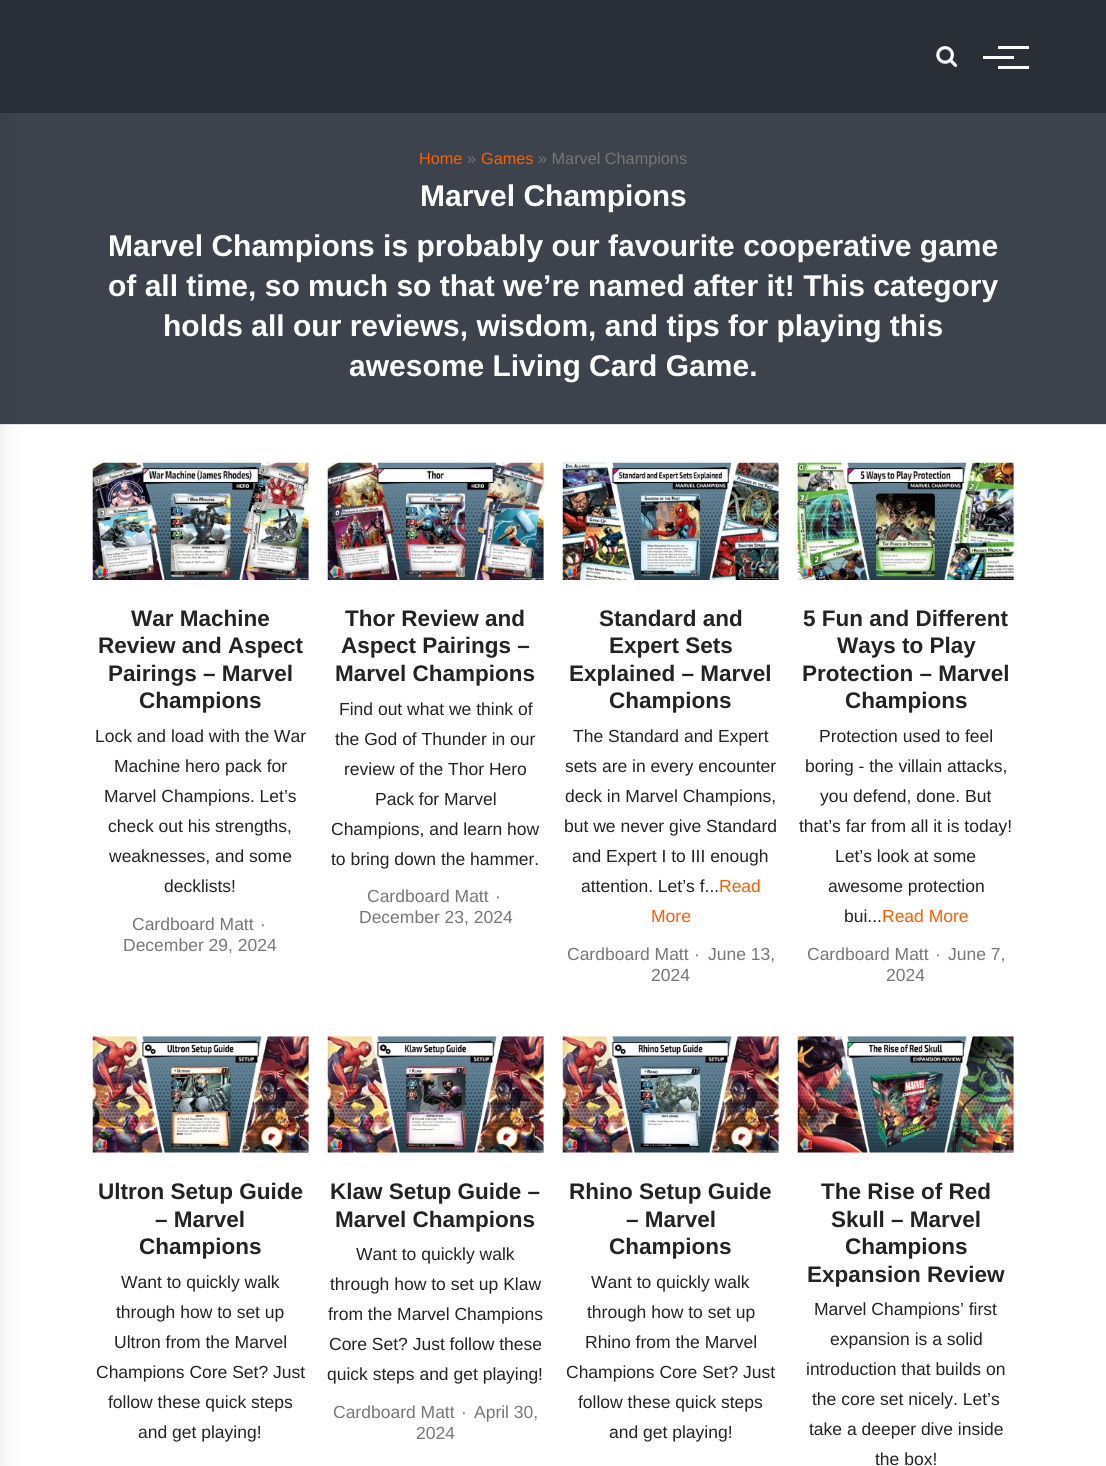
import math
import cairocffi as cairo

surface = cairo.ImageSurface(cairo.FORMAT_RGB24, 1106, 1466)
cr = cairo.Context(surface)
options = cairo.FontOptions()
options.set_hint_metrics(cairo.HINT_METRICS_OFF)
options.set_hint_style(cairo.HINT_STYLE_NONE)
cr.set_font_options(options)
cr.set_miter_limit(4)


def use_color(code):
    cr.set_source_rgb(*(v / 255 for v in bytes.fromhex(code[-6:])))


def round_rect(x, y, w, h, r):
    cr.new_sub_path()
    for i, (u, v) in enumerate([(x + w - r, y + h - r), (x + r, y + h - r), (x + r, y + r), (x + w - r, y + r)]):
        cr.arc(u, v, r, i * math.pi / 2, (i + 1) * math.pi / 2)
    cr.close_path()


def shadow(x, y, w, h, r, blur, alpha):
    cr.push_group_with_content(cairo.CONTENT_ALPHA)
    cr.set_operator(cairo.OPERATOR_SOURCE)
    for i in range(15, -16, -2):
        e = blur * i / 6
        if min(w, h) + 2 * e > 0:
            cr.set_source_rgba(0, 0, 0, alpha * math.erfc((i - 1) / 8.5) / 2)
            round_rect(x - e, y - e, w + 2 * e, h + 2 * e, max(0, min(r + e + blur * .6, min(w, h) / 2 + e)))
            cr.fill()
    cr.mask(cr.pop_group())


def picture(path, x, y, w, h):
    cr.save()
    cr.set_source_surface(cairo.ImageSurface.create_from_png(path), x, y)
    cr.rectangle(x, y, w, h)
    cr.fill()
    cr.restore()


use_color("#ffffff")
cr.paint()
use_color("#2a2f37")
cr.rectangle(0, 0, 1106, 113)
cr.fill()
use_color("#3d434c")
cr.rectangle(0, 113, 1106, 311)
cr.fill()
use_color("#e6e6e6")
cr.rectangle(0, 424, 1106, 1)
cr.fill()
use_color("#000000")
shadow(-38, 0, 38, 1466, 0, 12.5, 0.1)
picture("img1.png", 936, 46, 22, 21)
use_color("#ffffff")
cr.rectangle(983, 56, 31, 3)
cr.fill()
cr.rectangle(998, 46, 31, 3)
cr.fill()
cr.rectangle(998, 66, 31, 3)
cr.fill()
cr.select_font_face("Liberation Sans")
cr.set_font_size(16.25)
use_color("#ff5d00")
cr.move_to(419, 164)
cr.show_text("Home")
use_color("#777777")
cr.move_to(467, 164)
cr.show_text("»")
use_color("#ff5d00")
cr.move_to(481, 164)
cr.show_text("Games")
use_color("#777777")
cr.move_to(538, 164)
cr.show_text("» Marvel Champions")
cr.select_font_face("Liberation Sans", cairo.FONT_SLANT_NORMAL, cairo.FONT_WEIGHT_BOLD)
cr.set_font_size(30)
use_color("#ffffff")
cr.move_to(420, 206)
cr.show_text("Marvel Champions")
cr.move_to(108, 256)
cr.show_text("Marvel Champions is probably our favourite cooperative game")
cr.move_to(108, 296)
cr.show_text("of all time, so much so that we’re named after it! This category")
cr.move_to(163, 336)
cr.show_text("holds all our reviews, wisdom, and tips for playing this")
cr.move_to(349, 376)
cr.show_text("awesome Living Card Game.")
picture("img2.png", 92, 462, 217, 118)
cr.set_font_size(22.5)
use_color("#232323")
cr.move_to(131, 626)
cr.show_text("War Machine")
cr.move_to(98, 653)
cr.show_text("Review and Aspect")
cr.move_to(108, 681)
cr.show_text("Pairings – Marvel")
cr.move_to(139, 708)
cr.show_text("Champions")
cr.select_font_face("Liberation Sans")
cr.set_font_size(17.5)
cr.move_to(95, 742)
cr.show_text("Lock and load with the War")
cr.move_to(114, 772)
cr.show_text("Machine hero pack for")
cr.move_to(104, 802)
cr.show_text("Marvel Champions. Let’s")
cr.move_to(108, 832)
cr.show_text("check out his strengths,")
cr.move_to(109, 862)
cr.show_text("weaknesses, and some")
cr.move_to(164, 892)
cr.show_text("decklists!")
use_color("#777777")
cr.move_to(132, 930)
cr.show_text("Cardboard Matt")
cr.move_to(260, 930)
cr.show_text("·")
cr.move_to(123, 951)
cr.show_text("December 29, 2024")
picture("img3.png", 327, 462, 217, 118)
cr.select_font_face("Liberation Sans", cairo.FONT_SLANT_NORMAL, cairo.FONT_WEIGHT_BOLD)
cr.set_font_size(22.5)
use_color("#232323")
cr.move_to(345, 626)
cr.show_text("Thor Review and")
cr.move_to(341, 653)
cr.show_text("Aspect Pairings –")
cr.move_to(335, 681)
cr.show_text("Marvel Champions")
cr.select_font_face("Liberation Sans")
cr.set_font_size(17.5)
cr.move_to(339, 715)
cr.show_text("Find out what we think of")
cr.move_to(335, 745)
cr.show_text("the God of Thunder in our")
cr.move_to(344, 775)
cr.show_text("review of the Thor Hero")
cr.move_to(375, 805)
cr.show_text("Pack for Marvel")
cr.move_to(331, 835)
cr.show_text("Champions, and learn how")
cr.move_to(331, 865)
cr.show_text("to bring down the hammer.")
use_color("#777777")
cr.move_to(367, 902)
cr.show_text("Cardboard Matt")
cr.move_to(495, 902)
cr.show_text("·")
cr.move_to(359, 923)
cr.show_text("December 23, 2024")
picture("img4.png", 562, 462, 217, 118)
cr.select_font_face("Liberation Sans", cairo.FONT_SLANT_NORMAL, cairo.FONT_WEIGHT_BOLD)
cr.set_font_size(22.5)
use_color("#232323")
cr.move_to(599, 626)
cr.show_text("Standard and")
cr.move_to(609, 653)
cr.show_text("Expert Sets")
cr.move_to(569, 681)
cr.show_text("Explained – Marvel")
cr.move_to(609, 708)
cr.show_text("Champions")
cr.select_font_face("Liberation Sans")
cr.set_font_size(17.5)
cr.move_to(573, 742)
cr.show_text("The Standard and Expert")
cr.move_to(565, 772)
cr.show_text("sets are in every encounter")
cr.move_to(565, 802)
cr.show_text("deck in Marvel Champions,")
cr.move_to(564, 832)
cr.show_text("but we never give Standard")
cr.move_to(572, 862)
cr.show_text("and Expert I to III enough")
cr.move_to(581, 892)
cr.show_text("attention. Let’s f...")
use_color("#ff5d00")
cr.move_to(719, 892)
cr.show_text("Read")
cr.move_to(651, 922)
cr.show_text("More")
use_color("#777777")
cr.move_to(567, 960)
cr.show_text("Cardboard Matt")
cr.move_to(694, 960)
cr.show_text("·")
cr.move_to(708, 960)
cr.show_text("June 13,")
cr.move_to(651, 981)
cr.show_text("2024")
picture("img5.png", 797, 462, 217, 118)
cr.select_font_face("Liberation Sans", cairo.FONT_SLANT_NORMAL, cairo.FONT_WEIGHT_BOLD)
cr.set_font_size(22.5)
use_color("#232323")
cr.move_to(803, 626)
cr.show_text("5 Fun and Different")
cr.move_to(837, 653)
cr.show_text("Ways to Play")
cr.move_to(802, 681)
cr.show_text("Protection – Marvel")
cr.move_to(845, 708)
cr.show_text("Champions")
cr.select_font_face("Liberation Sans")
cr.set_font_size(17.5)
cr.move_to(819, 742)
cr.show_text("Protection used to feel")
cr.move_to(805, 772)
cr.show_text("boring - the villain attacks,")
cr.move_to(820, 802)
cr.show_text("you defend, done. But")
cr.move_to(799, 832)
cr.show_text("that’s far from all it is today!")
cr.move_to(835, 862)
cr.show_text("Let’s look at some")
cr.move_to(828, 892)
cr.show_text("awesome protection")
cr.move_to(844, 922)
cr.show_text("bui...")
use_color("#ff5d00")
cr.move_to(882, 922)
cr.show_text("Read More")
use_color("#777777")
cr.move_to(807, 960)
cr.show_text("Cardboard Matt")
cr.move_to(935, 960)
cr.show_text("·")
cr.move_to(948, 960)
cr.show_text("June 7,")
cr.move_to(886, 981)
cr.show_text("2024")
picture("img6.png", 92, 1036, 217, 117)
cr.select_font_face("Liberation Sans", cairo.FONT_SLANT_NORMAL, cairo.FONT_WEIGHT_BOLD)
cr.set_font_size(22.5)
use_color("#232323")
cr.move_to(98, 1199)
cr.show_text("Ultron Setup Guide")
cr.move_to(155, 1227)
cr.show_text("– Marvel")
cr.move_to(139, 1254)
cr.show_text("Champions")
cr.select_font_face("Liberation Sans")
cr.set_font_size(17.5)
cr.move_to(121, 1288)
cr.show_text("Want to quickly walk")
cr.move_to(116, 1318)
cr.show_text("through how to set up")
cr.move_to(114, 1348)
cr.show_text("Ultron from the Marvel")
cr.move_to(96, 1378)
cr.show_text("Champions Core Set? Just")
cr.move_to(108, 1408)
cr.show_text("follow these quick steps")
cr.move_to(138, 1438)
cr.show_text("and get playing!")
picture("img7.png", 327, 1036, 217, 117)
cr.select_font_face("Liberation Sans", cairo.FONT_SLANT_NORMAL, cairo.FONT_WEIGHT_BOLD)
cr.set_font_size(22.5)
cr.move_to(330, 1199)
cr.show_text("Klaw Setup Guide –")
cr.move_to(335, 1227)
cr.show_text("Marvel Champions")
cr.select_font_face("Liberation Sans")
cr.set_font_size(17.5)
cr.move_to(356, 1260)
cr.show_text("Want to quickly walk")
cr.move_to(330, 1290)
cr.show_text("through how to set up Klaw")
cr.move_to(328, 1320)
cr.show_text("from the Marvel Champions")
cr.move_to(329, 1350)
cr.show_text("Core Set? Just follow these")
cr.move_to(327, 1380)
cr.show_text("quick steps and get playing!")
use_color("#777777")
cr.move_to(333, 1418)
cr.show_text("Cardboard Matt")
cr.move_to(461, 1418)
cr.show_text("·")
cr.move_to(474, 1418)
cr.show_text("April 30,")
cr.move_to(416, 1439)
cr.show_text("2024")
picture("img8.png", 562, 1036, 217, 117)
cr.select_font_face("Liberation Sans", cairo.FONT_SLANT_NORMAL, cairo.FONT_WEIGHT_BOLD)
cr.set_font_size(22.5)
use_color("#232323")
cr.move_to(569, 1199)
cr.show_text("Rhino Setup Guide")
cr.move_to(626, 1227)
cr.show_text("– Marvel")
cr.move_to(609, 1254)
cr.show_text("Champions")
cr.select_font_face("Liberation Sans")
cr.set_font_size(17.5)
cr.move_to(591, 1288)
cr.show_text("Want to quickly walk")
cr.move_to(587, 1318)
cr.show_text("through how to set up")
cr.move_to(585, 1348)
cr.show_text("Rhino from the Marvel")
cr.move_to(566, 1378)
cr.show_text("Champions Core Set? Just")
cr.move_to(578, 1408)
cr.show_text("follow these quick steps")
cr.move_to(609, 1438)
cr.show_text("and get playing!")
picture("img9.png", 797, 1036, 217, 117)
cr.select_font_face("Liberation Sans", cairo.FONT_SLANT_NORMAL, cairo.FONT_WEIGHT_BOLD)
cr.set_font_size(22.5)
cr.move_to(821, 1199)
cr.show_text("The Rise of Red")
cr.move_to(831, 1227)
cr.show_text("Skull – Marvel")
cr.move_to(845, 1254)
cr.show_text("Champions")
cr.move_to(807, 1282)
cr.show_text("Expansion Review")
cr.select_font_face("Liberation Sans")
cr.set_font_size(17.5)
cr.move_to(814, 1315)
cr.show_text("Marvel Champions’ first")
cr.move_to(830, 1345)
cr.show_text("expansion is a solid")
cr.move_to(806, 1375)
cr.show_text("introduction that builds on")
cr.move_to(812, 1405)
cr.show_text("the core set nicely. Let’s")
cr.move_to(809, 1435)
cr.show_text("take a deeper dive inside")
cr.move_to(875, 1465)
cr.show_text("the box!")
surface.write_to_png("result.png")
